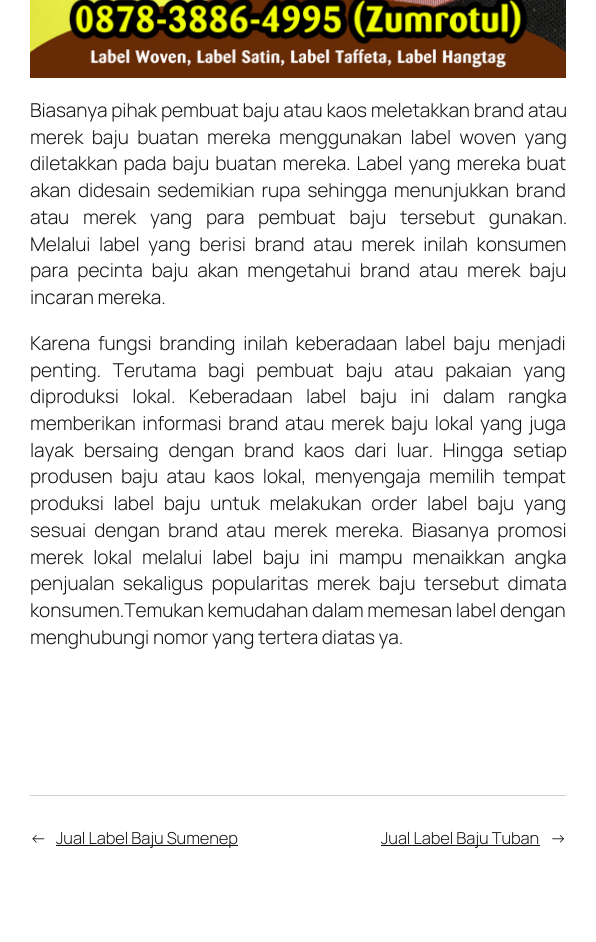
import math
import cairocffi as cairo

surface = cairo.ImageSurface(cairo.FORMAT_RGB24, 596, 942)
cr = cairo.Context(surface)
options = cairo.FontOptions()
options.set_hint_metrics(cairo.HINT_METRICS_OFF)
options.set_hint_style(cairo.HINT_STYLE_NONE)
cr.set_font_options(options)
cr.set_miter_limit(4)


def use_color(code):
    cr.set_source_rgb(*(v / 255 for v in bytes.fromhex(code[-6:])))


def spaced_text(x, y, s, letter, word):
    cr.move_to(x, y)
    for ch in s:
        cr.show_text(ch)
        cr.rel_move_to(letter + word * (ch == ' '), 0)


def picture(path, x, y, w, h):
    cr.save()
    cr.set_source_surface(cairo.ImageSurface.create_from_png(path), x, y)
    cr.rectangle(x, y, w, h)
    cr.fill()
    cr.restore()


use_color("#ffffff")
cr.paint()
picture("img1.png", 30, 0, 536, 78)
cr.select_font_face("Manrope Light")
cr.set_font_size(19.1)
use_color("#111111")
spaced_text(30, 117, "Biasanya pihak pembuat baju atau kaos meletakkan brand atau", -0.1, 0.25)
spaced_text(30, 144, "merek baju buatan mereka menggunakan label woven yang", -0.1, 4.75)
spaced_text(30, 170, "diletakkan pada baju buatan mereka. Label yang mereka buat", -0.1, 2.25)
spaced_text(30, 197, "akan didesain sedemikian rupa sehingga menunjukkan brand", -0.1, 3.25)
spaced_text(30, 224, "atau merek yang para pembuat baju tersebut gunakan.", -0.1, 10)
spaced_text(30, 251, "Melalui label yang berisi brand atau merek inilah konsumen", -0.1, 5)
spaced_text(30, 277, "para pecinta baju akan mengetahui brand atau merek baju", -0.1, 5.25)
spaced_text(30, 304, "incaran mereka.", -0.1, 0)
spaced_text(30, 350, "Karena fungsi branding inilah keberadaan label baju menjadi", -0.1, 4)
spaced_text(30, 377, "penting. Terutama bagi pembuat baju atau pakaian yang", -0.1, 8)
spaced_text(30, 403, "diproduksi lokal. Keberadaan label baju ini dalam rangka", -0.1, 9.75)
spaced_text(30, 430, "memberikan informasi brand atau merek baju lokal yang juga", -0.1, 3)
spaced_text(30, 457, "layak bersaing dengan brand kaos dari luar. Hingga setiap", -0.1, 6.25)
spaced_text(30, 483, "produsen baju atau kaos lokal, menyengaja memilih tempat", -0.1, 4.75)
spaced_text(30, 510, "produksi label baju untuk melakukan order label baju yang", -0.1, 6)
spaced_text(30, 537, "sesuai dengan brand atau merek mereka. Biasanya promosi", -0.1, 4.5)
spaced_text(30, 564, "merek lokal melalui label baju ini mampu menaikkan angka", -0.1, 6.25)
spaced_text(30, 590, "penjualan sekaligus popularitas merek baju tersebut dimata", -0.1, 4.75)
spaced_text(30, 617, "konsumen.Temukan kemudahan dalam memesan label dengan", -0.1, 0)
spaced_text(30, 644, "menghubungi nomor yang tertera diatas ya.", -0.1, 0)
use_color("#cfcfcf")
cr.rectangle(30, 795, 536, 1)
cr.fill()
cr.set_font_size(16.5)
use_color("#111111")
spaced_text(30, 844, "←", -0.1, 0)
cr.rectangle(56, 845, 182, 1)
cr.fill()
spaced_text(56, 844, "Jual Label Baju Sumenep", -0.1, 0)
cr.rectangle(381, 845, 159, 1)
cr.fill()
spaced_text(381, 844, "Jual Label Baju Tuban", -0.1, 0)
spaced_text(550, 844, "→", -0.1, 0)
surface.write_to_png("result.png")
